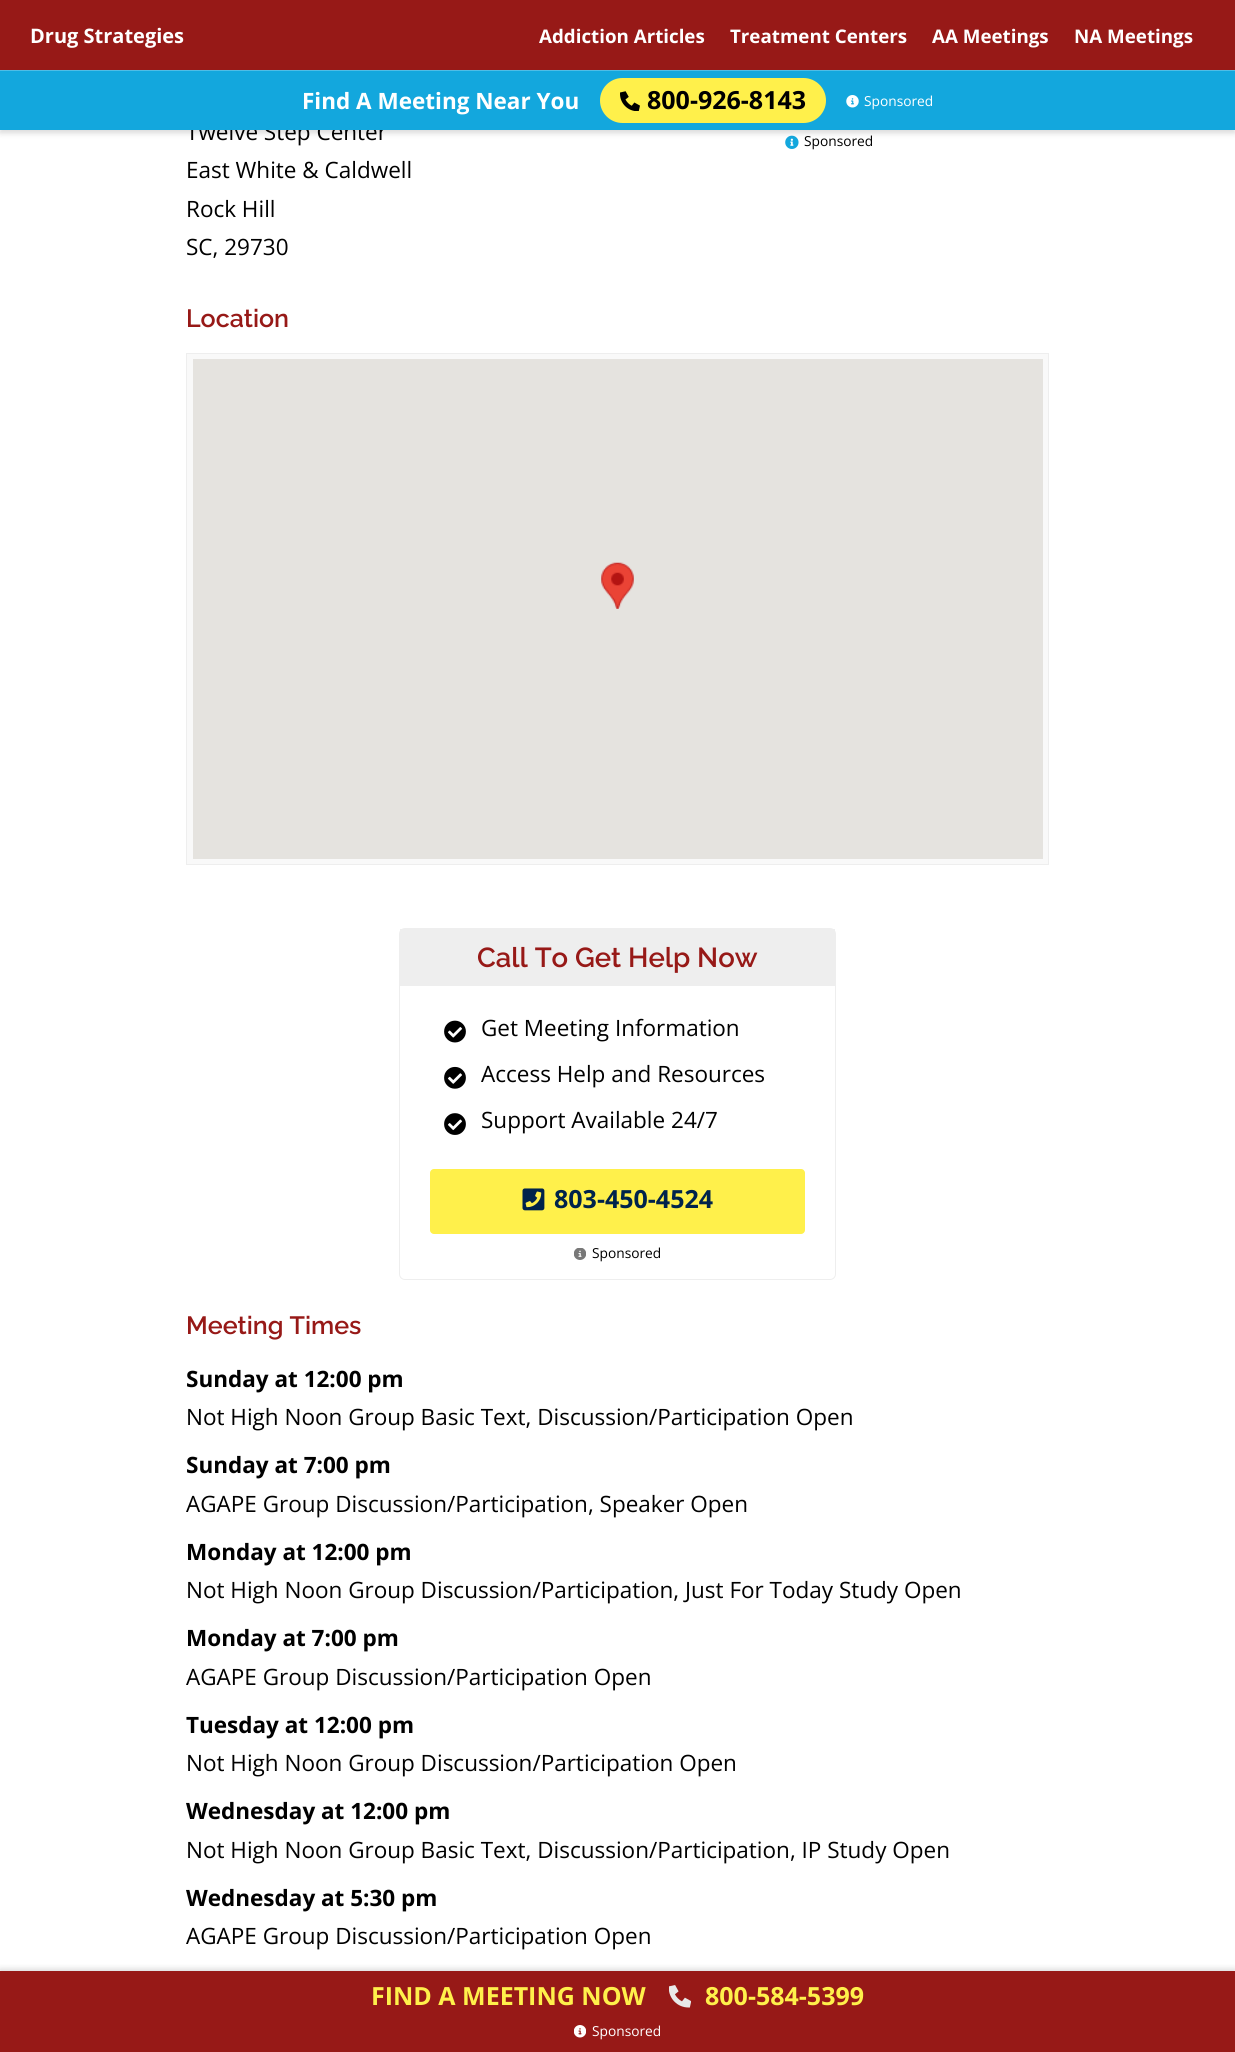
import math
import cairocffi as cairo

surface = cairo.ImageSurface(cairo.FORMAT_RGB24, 1235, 2052)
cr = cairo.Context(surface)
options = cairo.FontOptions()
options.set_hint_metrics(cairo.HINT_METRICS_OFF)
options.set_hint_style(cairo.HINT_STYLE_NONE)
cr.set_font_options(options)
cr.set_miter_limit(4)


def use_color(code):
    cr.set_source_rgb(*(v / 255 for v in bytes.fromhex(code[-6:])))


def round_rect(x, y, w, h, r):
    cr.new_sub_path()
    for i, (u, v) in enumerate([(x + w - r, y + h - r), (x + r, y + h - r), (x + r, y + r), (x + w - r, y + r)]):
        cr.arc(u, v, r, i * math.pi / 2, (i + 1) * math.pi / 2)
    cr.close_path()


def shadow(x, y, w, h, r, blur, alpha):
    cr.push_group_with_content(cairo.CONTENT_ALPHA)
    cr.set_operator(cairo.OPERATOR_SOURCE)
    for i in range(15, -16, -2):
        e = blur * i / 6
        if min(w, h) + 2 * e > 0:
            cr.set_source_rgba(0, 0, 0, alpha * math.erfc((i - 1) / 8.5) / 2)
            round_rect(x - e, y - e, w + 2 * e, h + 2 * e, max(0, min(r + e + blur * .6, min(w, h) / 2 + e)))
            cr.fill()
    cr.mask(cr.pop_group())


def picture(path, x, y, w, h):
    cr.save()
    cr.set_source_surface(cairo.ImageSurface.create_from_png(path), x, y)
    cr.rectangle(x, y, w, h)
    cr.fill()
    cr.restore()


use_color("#ffffff")
cr.paint()
picture("img3.png", 785, 135, 14, 14)
use_color("#000000")
shadow(0, 3, 1235, 130, 0, 3, 0.15)
use_color("#971917")
cr.rectangle(0, 0, 1235, 70)
cr.fill()
cr.select_font_face("Open Sans", cairo.FONT_SLANT_NORMAL, cairo.FONT_WEIGHT_BOLD)
cr.set_font_size(20)
use_color("#ffffff")
cr.move_to(30, 43)
cr.show_text("Drug Strategies")
cr.set_font_size(18.75)
cr.move_to(539, 43)
cr.show_text("Addiction Articles")
cr.move_to(730, 43)
cr.show_text("Treatment Centers")
cr.move_to(932, 43)
cr.show_text("AA Meetings")
cr.move_to(1074, 43)
cr.show_text("NA Meetings")
cr.select_font_face("Open Sans")
cr.set_font_size(22.5)
use_color("#000000")
cr.move_to(186, 140)
cr.show_text("Twelve Step Center")
use_color("#13a7dd")
cr.rectangle(0, 71, 1235, 59)
cr.fill()
use_color("#4ebde6")
cr.rectangle(0, 70, 1235, 1)
cr.fill()
cr.select_font_face("Open Sans", cairo.FONT_SLANT_NORMAL, cairo.FONT_WEIGHT_BOLD)
use_color("#ffffff")
cr.move_to(302, 109)
cr.show_text("Find A Meeting Near You")
use_color("#fff04b")
round_rect(600, 78, 226, 45, 22.5)
cr.fill()
picture("img1.png", 620, 91, 20, 20)
cr.set_font_size(25)
use_color("#000000")
cr.move_to(647, 109)
cr.show_text("800-926-8143")
picture("img2.png", 846, 95, 13, 13)
cr.select_font_face("Open Sans")
cr.set_font_size(13.75)
use_color("#ffffff")
cr.move_to(864, 106)
cr.show_text("Sponsored")
cr.set_font_size(22.5)
use_color("#000000")
cr.move_to(186, 178)
cr.show_text("East White & Caldwell")
cr.move_to(186, 217)
cr.show_text("Rock Hill")
cr.move_to(186, 255)
cr.show_text("SC, 29730")
cr.set_font_size(13.75)
cr.move_to(804, 146)
cr.show_text("Sponsored")
cr.select_font_face("Raleway SemiBold")
cr.set_font_size(25)
use_color("#971917")
cr.move_to(186, 327)
cr.show_text("Location")
use_color("#f9f9f9")
cr.rectangle(186.5, 353.5, 862, 511)
cr.fill_preserve()
use_color("#eeeeee")
cr.set_line_width(1)
cr.stroke()
use_color("#e5e3df")
cr.rectangle(193, 359, 850, 500)
cr.fill()
picture("img4.png", 601, 562, 33, 47)
round_rect(399.5, 928.5, 436, 351, 5.5)
use_color("#eeeeee")
cr.stroke()
cr.rectangle(400, 929, 435, 57)
cr.fill()
cr.set_font_size(27.5)
use_color("#971917")
cr.move_to(477, 967)
cr.show_text("Call To Get Help Now")
picture("img5.png", 444, 1020, 22, 23)
cr.select_font_face("Open Sans")
cr.set_font_size(22.5)
use_color("#000000")
cr.move_to(481, 1036)
cr.show_text("Get Meeting Information")
picture("img6.png", 444, 1066, 22, 23)
cr.move_to(481, 1082)
cr.show_text("Access Help and Resources")
picture("img7.png", 444, 1113, 22, 22)
cr.move_to(481, 1128)
cr.show_text("Support Available 24/7")
use_color("#fff04b")
round_rect(430, 1169, 375, 65, 4)
cr.fill()
picture("img8.png", 522, 1188, 23, 23)
cr.select_font_face("Open Sans", cairo.FONT_SLANT_NORMAL, cairo.FONT_WEIGHT_BOLD)
cr.set_font_size(25)
use_color("#00234b")
cr.move_to(554, 1208)
cr.show_text("803-450-4524")
picture("img9.png", 574, 1248, 12, 12)
cr.select_font_face("Open Sans")
cr.set_font_size(13.75)
use_color("#000000")
cr.move_to(592, 1258)
cr.show_text("Sponsored")
cr.select_font_face("Raleway SemiBold")
cr.set_font_size(25)
use_color("#971917")
cr.move_to(186, 1334)
cr.show_text("Meeting Times")
cr.select_font_face("Open Sans", cairo.FONT_SLANT_NORMAL, cairo.FONT_WEIGHT_BOLD)
cr.set_font_size(22.5)
use_color("#000000")
cr.move_to(186, 1387)
cr.show_text("Sunday at 12:00 pm")
cr.select_font_face("Open Sans")
cr.move_to(186, 1425)
cr.show_text("Not High Noon Group Basic Text, Discussion/Participation Open")
cr.select_font_face("Open Sans", cairo.FONT_SLANT_NORMAL, cairo.FONT_WEIGHT_BOLD)
cr.move_to(186, 1473)
cr.show_text("Sunday at 7:00 pm")
cr.select_font_face("Open Sans")
cr.move_to(186, 1512)
cr.show_text("AGAPE Group Discussion/Participation, Speaker Open")
cr.select_font_face("Open Sans", cairo.FONT_SLANT_NORMAL, cairo.FONT_WEIGHT_BOLD)
cr.move_to(186, 1560)
cr.show_text("Monday at 12:00 pm")
cr.select_font_face("Open Sans")
cr.move_to(186, 1598)
cr.show_text("Not High Noon Group Discussion/Participation, Just For Today Study Open")
cr.select_font_face("Open Sans", cairo.FONT_SLANT_NORMAL, cairo.FONT_WEIGHT_BOLD)
cr.move_to(186, 1646)
cr.show_text("Monday at 7:00 pm")
cr.select_font_face("Open Sans")
cr.move_to(186, 1685)
cr.show_text("AGAPE Group Discussion/Participation Open")
cr.select_font_face("Open Sans", cairo.FONT_SLANT_NORMAL, cairo.FONT_WEIGHT_BOLD)
cr.move_to(186, 1733)
cr.show_text("Tuesday at 12:00 pm")
cr.select_font_face("Open Sans")
cr.move_to(186, 1771)
cr.show_text("Not High Noon Group Discussion/Participation Open")
cr.select_font_face("Open Sans", cairo.FONT_SLANT_NORMAL, cairo.FONT_WEIGHT_BOLD)
cr.move_to(186, 1819)
cr.show_text("Wednesday at 12:00 pm")
cr.select_font_face("Open Sans")
cr.move_to(186, 1858)
cr.show_text("Not High Noon Group Basic Text, Discussion/Participation, IP Study Open")
cr.select_font_face("Open Sans", cairo.FONT_SLANT_NORMAL, cairo.FONT_WEIGHT_BOLD)
cr.move_to(186, 1906)
cr.show_text("Wednesday at 5:30 pm")
cr.select_font_face("Open Sans")
cr.move_to(186, 1944)
cr.show_text("AGAPE Group Discussion/Participation Open")
use_color("#000000")
shadow(0, 1969, 1235, 81, 0, 3, 0.15)
use_color("#971917")
cr.rectangle(0, 1971, 1235, 81)
cr.fill()
cr.select_font_face("Open Sans", cairo.FONT_SLANT_NORMAL, cairo.FONT_WEIGHT_BOLD)
cr.set_font_size(25)
use_color("#fff04b")
cr.move_to(371, 2005)
cr.show_text("FIND A MEETING NOW")
picture("img10.png", 669, 1985, 22, 23)
cr.move_to(705, 2005)
cr.show_text("800-584-5399")
picture("img11.png", 574, 2025, 12, 13)
cr.select_font_face("Open Sans")
cr.set_font_size(13.75)
use_color("#ffffff")
cr.move_to(592, 2036)
cr.show_text("Sponsored")
surface.write_to_png("result.png")
